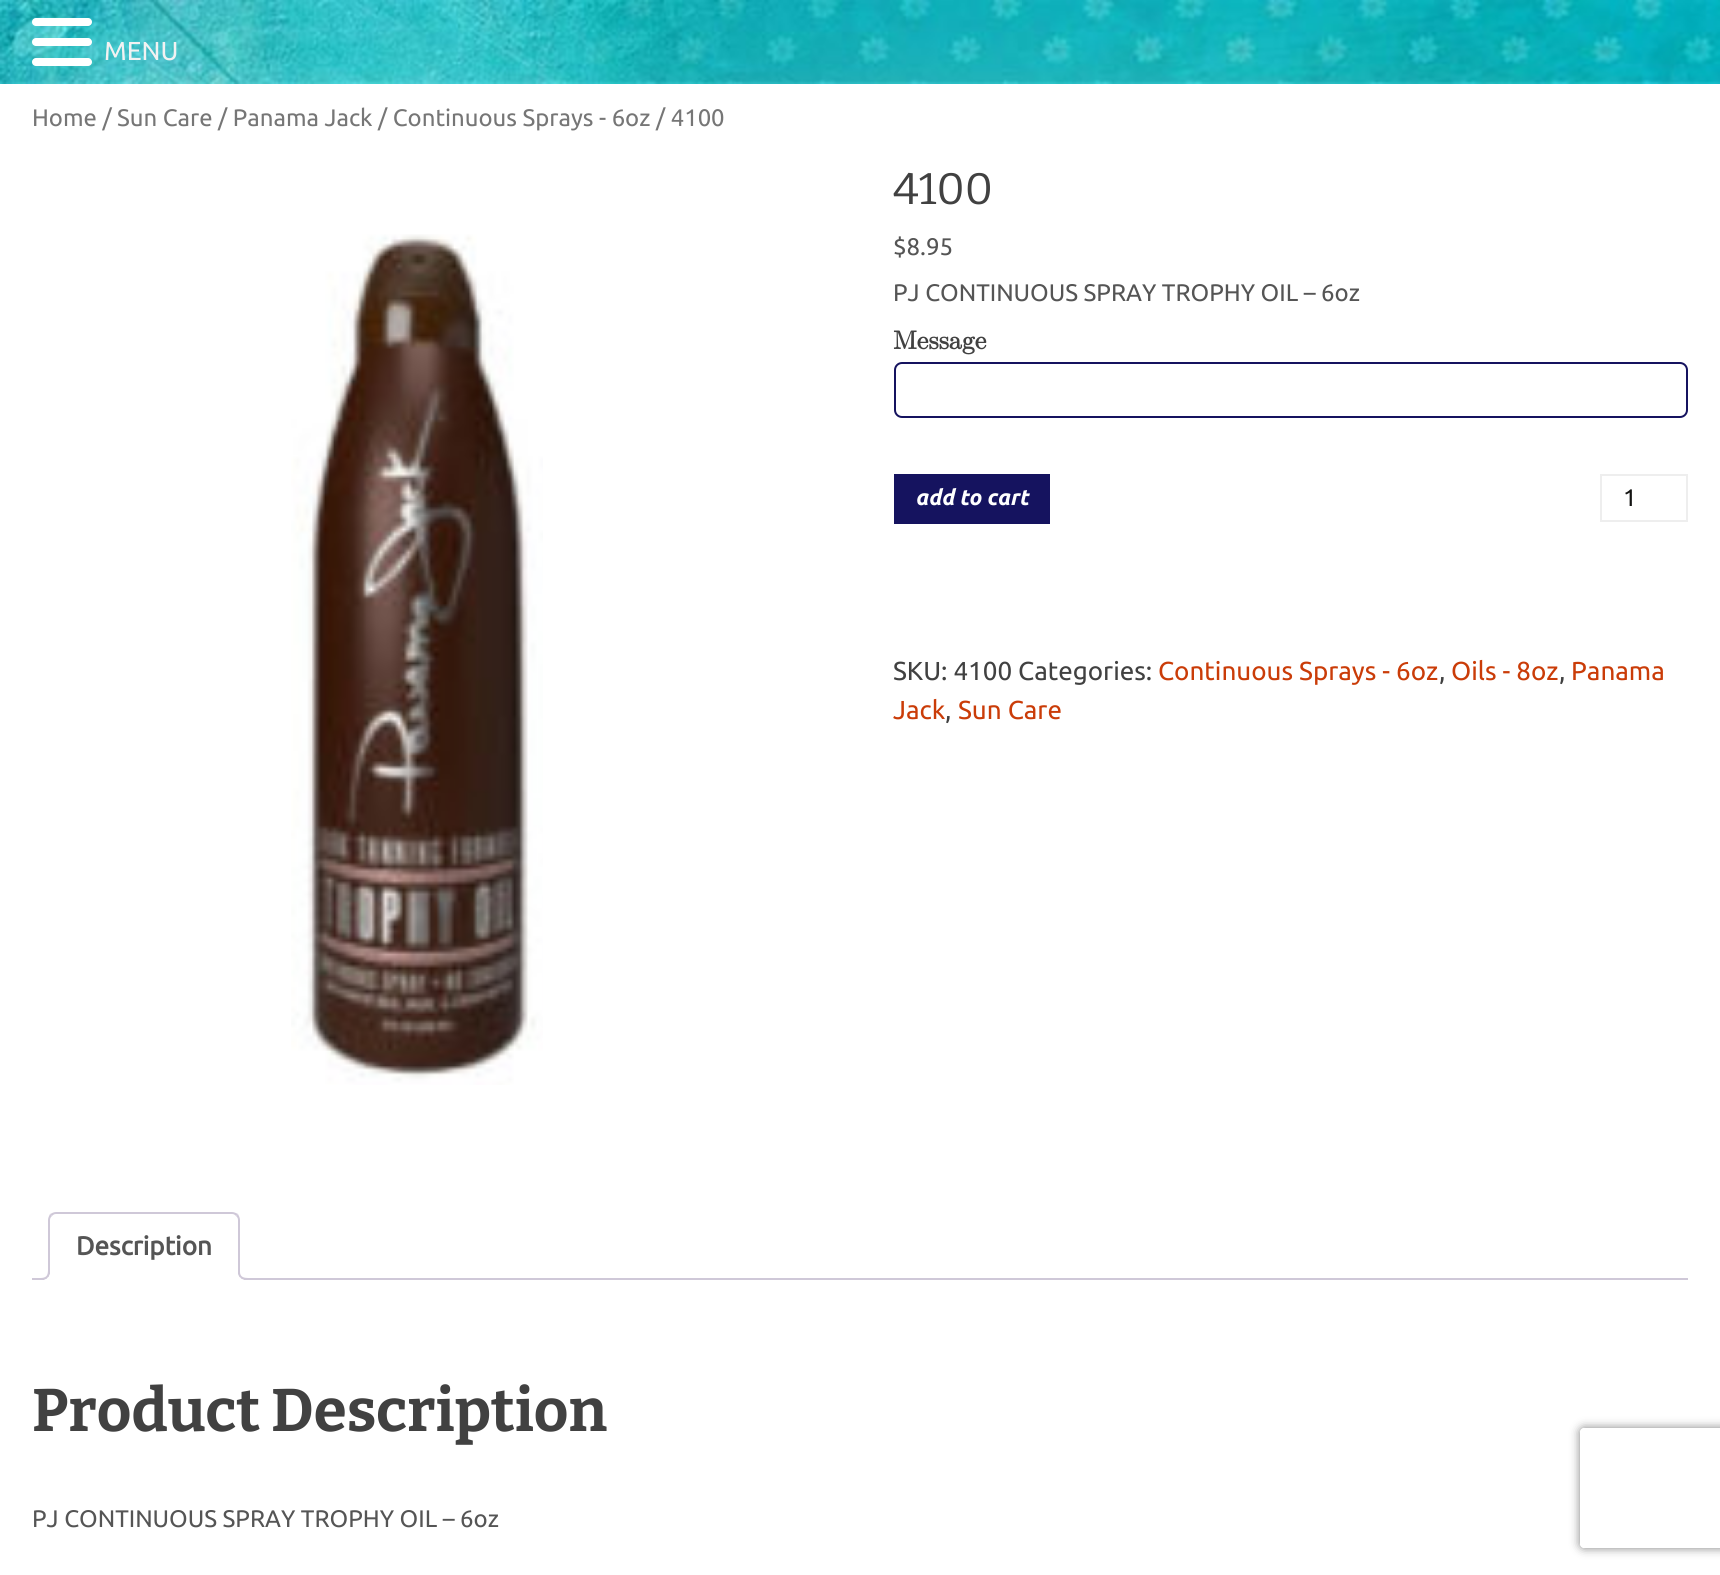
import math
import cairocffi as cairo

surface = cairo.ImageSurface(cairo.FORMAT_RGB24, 1720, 1575)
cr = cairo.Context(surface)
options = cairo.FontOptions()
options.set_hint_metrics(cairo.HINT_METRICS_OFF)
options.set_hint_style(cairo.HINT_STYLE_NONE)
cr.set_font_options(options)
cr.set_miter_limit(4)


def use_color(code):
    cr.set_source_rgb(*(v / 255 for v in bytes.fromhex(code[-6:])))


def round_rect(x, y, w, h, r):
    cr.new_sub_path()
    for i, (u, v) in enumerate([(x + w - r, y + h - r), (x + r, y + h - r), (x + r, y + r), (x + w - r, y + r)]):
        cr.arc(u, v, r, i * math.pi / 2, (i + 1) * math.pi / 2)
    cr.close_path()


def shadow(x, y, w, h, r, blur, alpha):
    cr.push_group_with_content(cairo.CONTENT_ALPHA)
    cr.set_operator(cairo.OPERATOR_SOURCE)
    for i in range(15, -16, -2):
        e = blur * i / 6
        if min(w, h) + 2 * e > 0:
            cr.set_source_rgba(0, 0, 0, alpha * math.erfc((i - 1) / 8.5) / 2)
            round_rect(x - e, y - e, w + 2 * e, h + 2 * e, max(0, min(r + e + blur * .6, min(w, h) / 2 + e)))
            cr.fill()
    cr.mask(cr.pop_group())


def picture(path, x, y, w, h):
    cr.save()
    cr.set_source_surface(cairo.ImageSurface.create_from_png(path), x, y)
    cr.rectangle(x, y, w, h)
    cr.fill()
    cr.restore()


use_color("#ffffff")
cr.paint()
picture("img1.png", 0, 0, 1720, 84)
use_color("#ffffff")
round_rect(32, 18, 60, 8, 4)
cr.fill()
round_rect(32, 38, 60, 8, 4)
cr.fill()
round_rect(32, 58, 60, 8, 4)
cr.fill()
cr.select_font_face("Ubuntu")
cr.set_font_size(26)
use_color("#f2f2f2")
cr.move_to(104, 60)
cr.show_text("MENU")
cr.set_font_size(23.9)
use_color("#767676")
cr.move_to(32, 126)
cr.show_text("Home / Sun Care / Panama Jack / Continuous Sprays - 6oz / 4100")
picture("img2.png", 291, 234, 252, 851)
cr.select_font_face("Bitter")
cr.set_font_size(44)
use_color("#414141")
cr.move_to(893, 204)
cr.show_text("4100")
cr.select_font_face("Ubuntu")
cr.set_font_size(24)
use_color("#555555")
cr.move_to(893, 255)
cr.show_text("$8.95")
cr.move_to(893, 301)
cr.show_text("PJ CONTINUOUS SPRAY TROPHY OIL – 6oz")
cr.select_font_face("Latin Modern Math", cairo.FONT_SLANT_NORMAL, cairo.FONT_WEIGHT_BOLD)
cr.set_font_size(26)
use_color("#414141")
cr.move_to(893, 349)
cr.show_text("Message")
round_rect(895, 363, 792, 54, 7)
use_color("#15135f")
cr.stroke()
cr.rectangle(894, 474, 156, 50)
cr.fill()
cr.select_font_face("Ubuntu", cairo.FONT_SLANT_ITALIC, cairo.FONT_WEIGHT_BOLD)
cr.set_font_size(22)
use_color("#ffffff")
cr.move_to(915, 505)
cr.show_text("add to cart")
cr.rectangle(1601, 475, 86, 46)
use_color("#eeeeee")
cr.stroke()
cr.select_font_face("Ubuntu")
cr.set_font_size(24)
use_color("#141412")
cr.move_to(1623, 506)
cr.show_text("1")
cr.set_font_size(26)
use_color("#414141")
cr.move_to(893, 680)
cr.show_text("SKU: 4100 Categories:")
use_color("#ca3c08")
cr.move_to(1158, 680)
cr.show_text("Continuous Sprays - 6oz")
use_color("#414141")
cr.move_to(1439, 680)
cr.show_text(",")
use_color("#ca3c08")
cr.move_to(1451, 680)
cr.show_text("Oils - 8oz")
use_color("#414141")
cr.move_to(1559, 680)
cr.show_text(",")
use_color("#ca3c08")
cr.move_to(1571, 680)
cr.show_text("Panama")
cr.move_to(893, 719)
cr.show_text("Jack")
use_color("#414141")
cr.move_to(945, 719)
cr.show_text(",")
use_color("#ca3c08")
cr.move_to(958, 719)
cr.show_text("Sun Care")
use_color("#cfc8d8")
cr.rectangle(32, 1278, 1656, 2)
cr.fill()
use_color("#ffffff")
cr.new_path()
cr.move_to(56, 1212)
cr.line_to(232, 1212)
cr.curve_to(236.5, 1212, 240, 1215.5, 240, 1220)
cr.line_to(240, 1280)
cr.line_to(48, 1280)
cr.line_to(48, 1220)
cr.curve_to(48, 1215.5, 51.5, 1212, 56, 1212)
cr.close_path()
cr.fill()
use_color("#cfc8d8")
cr.new_path()
cr.move_to(56, 1212)
cr.curve_to(54, 1212, 52, 1213, 50, 1214)
cr.line_to(52, 1216)
cr.curve_to(53, 1215, 54, 1214, 56, 1214)
cr.line_to(232, 1214)
cr.curve_to(234, 1214, 235, 1215, 236, 1216)
cr.line_to(238, 1214)
cr.curve_to(236, 1213, 234, 1212, 232, 1212)
cr.close_path()
cr.fill()
cr.new_path()
cr.move_to(240, 1280)
cr.line_to(240, 1220)
cr.curve_to(240, 1218, 239, 1216, 238, 1214)
cr.line_to(236, 1216)
cr.curve_to(237, 1217, 238, 1218, 238, 1220)
cr.line_to(238, 1278)
cr.close_path()
cr.fill()
use_color("#ffffff")
cr.new_path()
cr.move_to(240, 1280)
cr.line_to(238, 1278)
cr.line_to(50, 1278)
cr.line_to(48, 1280)
cr.close_path()
cr.fill()
use_color("#cfc8d8")
cr.new_path()
cr.move_to(48, 1280)
cr.line_to(50, 1278)
cr.line_to(50, 1220)
cr.curve_to(50, 1218, 51, 1217, 52, 1216)
cr.line_to(50, 1214)
cr.curve_to(49, 1216, 48, 1218, 48, 1220)
cr.close_path()
cr.fill()
cr.select_font_face("Ubuntu", cairo.FONT_SLANT_NORMAL, cairo.FONT_WEIGHT_BOLD)
use_color("#555555")
cr.move_to(76, 1255)
cr.show_text("Description")
cr.save()
cr.rectangle(32, 1212, 1656, 68)
cr.clip()
use_color("#ffffff")
cr.new_path()
cr.move_to(44, 1279.5)
cr.line_to(44, 1284)
cr.curve_to(51, 1284, 54, 1281, 54, 1274)
cr.line_to(49.5, 1274)
cr.curve_to(49, 1277, 47, 1279, 44, 1279.5)
cr.close_path()
cr.fill()
cr.restore()
use_color("#cfc8d8")
cr.set_fill_rule(cairo.FILL_RULE_EVEN_ODD)
cr.new_path()
cr.move_to(40, 1270)
cr.line_to(50, 1270)
cr.curve_to(50, 1277, 47, 1280, 40, 1280)
cr.close_path()
cr.move_to(40, 1270)
cr.line_to(48, 1270)
cr.curve_to(48, 1276, 46, 1278, 40, 1278)
cr.close_path()
cr.fill()
cr.save()
cr.set_fill_rule(cairo.FILL_RULE_WINDING)
cr.rectangle(32, 1212, 1656, 68)
cr.clip()
use_color("#ffffff")
cr.new_path()
cr.move_to(234, 1274)
cr.curve_to(234, 1281, 237, 1284, 244, 1284)
cr.line_to(244, 1279.5)
cr.curve_to(241, 1279, 239, 1277, 238.5, 1274)
cr.close_path()
cr.fill()
cr.restore()
cr.new_path()
cr.move_to(238, 1270)
cr.line_to(248, 1270)
cr.line_to(248, 1280)
cr.curve_to(243, 1280, 238, 1278, 238, 1272)
cr.close_path()
cr.move_to(240, 1270)
cr.line_to(248, 1270)
cr.line_to(248, 1278)
cr.curve_to(244, 1278, 240, 1277, 240, 1272)
cr.close_path()
cr.fill()
cr.select_font_face("Bitter", cairo.FONT_SLANT_NORMAL, cairo.FONT_WEIGHT_BOLD)
cr.set_font_size(60)
use_color("#414141")
cr.move_to(32, 1431)
cr.show_text("Product Description")
cr.select_font_face("Ubuntu")
cr.set_font_size(24)
use_color("#555555")
cr.move_to(32, 1527)
cr.show_text("PJ CONTINUOUS SPRAY TROPHY OIL – 6oz")
cr.save()
cr.new_path()
cr.move_to(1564, 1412)
cr.line_to(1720, 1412)
cr.line_to(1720, 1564)
cr.line_to(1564, 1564)
cr.close_path()
cr.move_to(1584, 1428)
cr.line_to(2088, 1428)
cr.curve_to(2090, 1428, 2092, 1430, 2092, 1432)
cr.line_to(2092, 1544)
cr.curve_to(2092, 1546, 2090, 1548, 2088, 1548)
cr.line_to(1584, 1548)
cr.curve_to(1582, 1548, 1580, 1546, 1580, 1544)
cr.line_to(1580, 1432)
cr.curve_to(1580, 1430, 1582, 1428, 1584, 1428)
cr.close_path()
cr.clip()
use_color("#808080")
shadow(1580, 1428, 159, 120, 4, 5, 1)
cr.restore()
surface.write_to_png("result.png")
